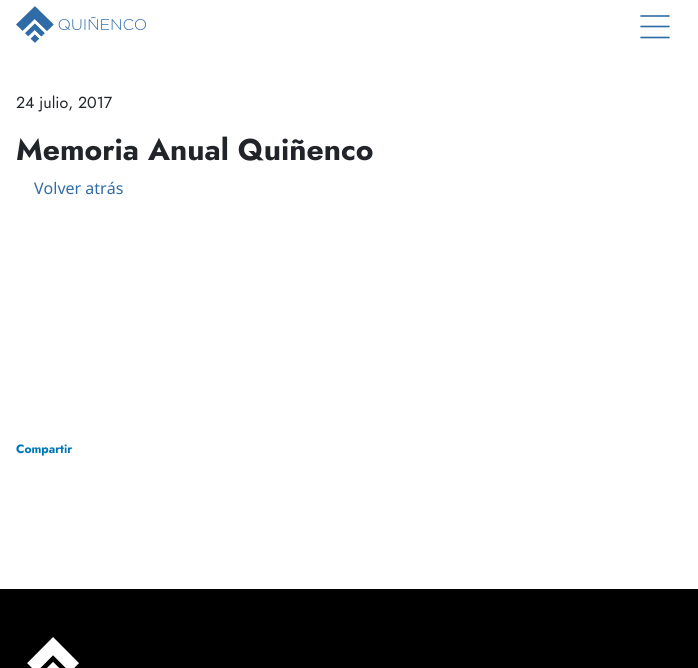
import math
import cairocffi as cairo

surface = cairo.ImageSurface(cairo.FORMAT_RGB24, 698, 668)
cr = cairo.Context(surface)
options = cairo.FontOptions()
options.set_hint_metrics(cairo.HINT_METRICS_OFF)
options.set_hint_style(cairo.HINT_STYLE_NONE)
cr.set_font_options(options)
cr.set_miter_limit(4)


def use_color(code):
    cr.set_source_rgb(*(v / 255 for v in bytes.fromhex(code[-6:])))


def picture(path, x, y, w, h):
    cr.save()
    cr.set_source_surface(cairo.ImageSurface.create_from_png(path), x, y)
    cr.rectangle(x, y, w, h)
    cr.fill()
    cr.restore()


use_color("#ffffff")
cr.paint()
picture("img1.png", 16, 6, 130, 37)
cr.new_path()
cr.move_to(641, 37.5)
cr.line_to(669, 37.5)
cr.move_to(641, 26.5)
cr.line_to(669, 26.5)
cr.move_to(641, 16)
cr.line_to(669, 16)
use_color("#2f6ba7")
cr.set_line_width(1.6)
cr.set_line_cap(cairo.LINE_CAP_ROUND)
cr.set_line_join(cairo.LINE_JOIN_ROUND)
cr.stroke()
cr.select_font_face("Jost")
cr.set_font_size(16)
use_color("#212529")
cr.move_to(16, 108)
cr.show_text("24 julio, 2017")
cr.select_font_face("Jost", cairo.FONT_SLANT_NORMAL, cairo.FONT_WEIGHT_BOLD)
cr.set_font_size(30)
cr.move_to(16, 160)
cr.show_text("Memoria Anual Quiñenco")
cr.select_font_face("Noto Sans")
cr.set_font_size(16)
use_color("#2f6ba7")
cr.move_to(34, 194)
cr.show_text("Volver atrás")
cr.select_font_face("Jost", cairo.FONT_SLANT_NORMAL, cairo.FONT_WEIGHT_BOLD)
cr.set_font_size(12)
use_color("#0077b5")
cr.move_to(16, 453)
cr.show_text("Compartir")
use_color("#000000")
cr.rectangle(0, 589, 698, 79)
cr.fill()
picture("img2.png", 27, 637, 52, 31)
surface.write_to_png("result.png")
